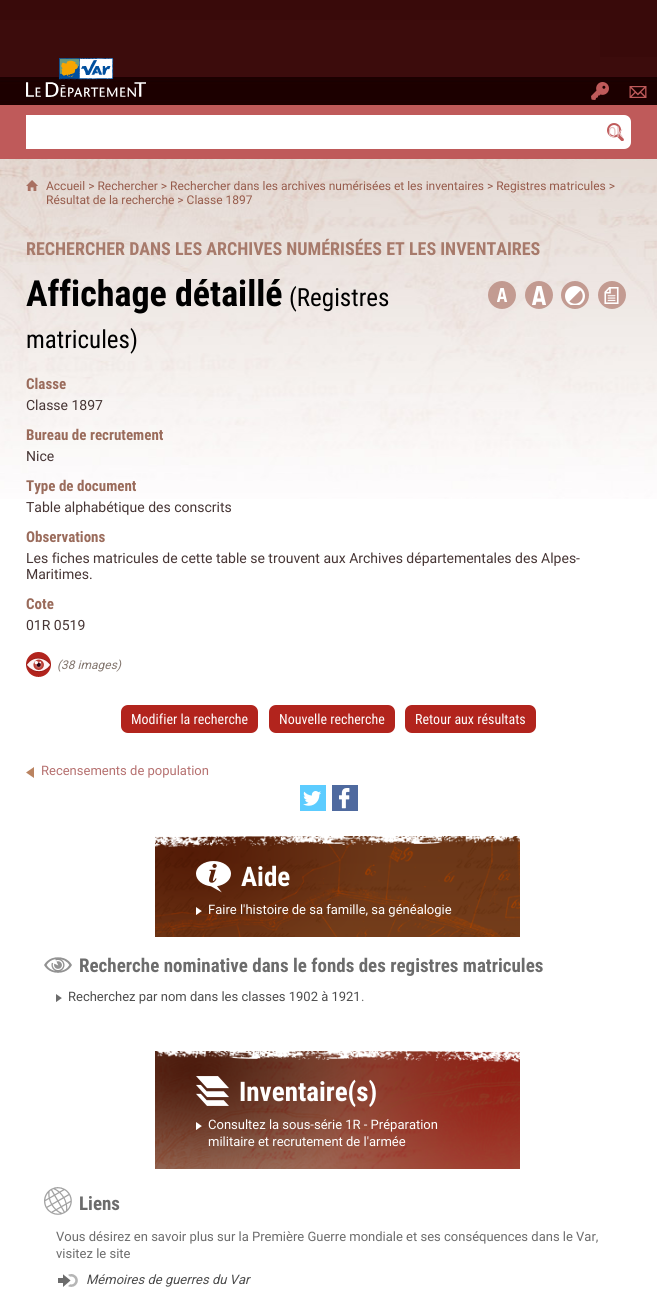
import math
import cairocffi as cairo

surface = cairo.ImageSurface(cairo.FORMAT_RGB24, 657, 1291)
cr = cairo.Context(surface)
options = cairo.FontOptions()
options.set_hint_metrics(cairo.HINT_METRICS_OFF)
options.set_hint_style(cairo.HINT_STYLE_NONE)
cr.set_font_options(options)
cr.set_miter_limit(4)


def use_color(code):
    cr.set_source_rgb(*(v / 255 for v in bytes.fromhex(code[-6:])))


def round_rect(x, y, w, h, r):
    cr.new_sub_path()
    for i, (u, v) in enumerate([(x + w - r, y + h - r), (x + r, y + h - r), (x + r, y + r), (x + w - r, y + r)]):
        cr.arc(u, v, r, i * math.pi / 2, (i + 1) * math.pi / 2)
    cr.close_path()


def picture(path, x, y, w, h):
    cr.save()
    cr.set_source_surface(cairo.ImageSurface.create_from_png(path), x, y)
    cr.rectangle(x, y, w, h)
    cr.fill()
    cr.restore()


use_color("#ffffff")
cr.paint()
picture("img1.png", 0, 20, 657, 85)
use_color("#390a0a")
cr.rectangle(0, 0, 600, 20)
cr.fill()
cr.rectangle(600, 0, 57, 57)
cr.fill()
picture("img2.png", 591, 82, 18, 18)
picture("img3.png", 26, 58, 120, 39)
picture("img4.png", 629, 86, 18, 12)
use_color("#bf5a5a")
cr.rectangle(0, 105, 657, 54)
cr.fill()
use_color("#ffffff")
cr.rectangle(26, 115, 574, 34)
cr.fill()
cr.new_path()
cr.move_to(600, 115)
cr.line_to(624, 115)
cr.curve_to(628, 115, 631, 118, 631, 122)
cr.line_to(631, 142)
cr.curve_to(631, 146, 628, 149, 624, 149)
cr.line_to(600, 149)
cr.close_path()
cr.fill()
picture("img5.png", 607, 123, 17, 18)
cr.select_font_face("Roboto Condensed")
cr.set_font_size(14)
use_color("#e6bebe")
cr.move_to(608, 137)
cr.show_text("Ok")
picture("img6.png", 0, 159, 657, 340)
picture("img7.png", 26, 180, 12, 11)
cr.select_font_face("Roboto")
cr.set_font_size(12)
use_color("#965b4b")
cr.move_to(46, 190)
cr.show_text("Accueil > Rechercher > Rechercher dans les archives numérisées et les inventaires > Registres matricules >")
cr.move_to(46, 204)
cr.show_text("Résultat de la recherche > Classe 1897")
cr.select_font_face("Roboto Condensed", cairo.FONT_SLANT_NORMAL, cairo.FONT_WEIGHT_BOLD)
cr.set_font_size(18)
use_color("#a77a6b")
cr.move_to(26, 255)
cr.show_text("RECHERCHER DANS LES ARCHIVES NUMÉRISÉES ET LES INVENTAIRES")
cr.set_font_size(36)
use_color("#000000")
cr.move_to(26, 306)
cr.show_text("Affichage détaillé")
cr.select_font_face("Roboto Condensed")
cr.set_font_size(25)
cr.move_to(289, 306)
cr.show_text("(Registres")
cr.move_to(26, 348)
cr.show_text("matricules)")
cr.select_font_face("Roboto Condensed", cairo.FONT_SLANT_NORMAL, cairo.FONT_WEIGHT_BOLD)
cr.set_font_size(15)
use_color("#9a6b5b")
cr.move_to(26, 389)
cr.show_text("Classe")
cr.select_font_face("Roboto")
cr.set_font_size(14)
use_color("#463534")
cr.move_to(26, 410)
cr.show_text("Classe 1897")
cr.select_font_face("Roboto Condensed", cairo.FONT_SLANT_NORMAL, cairo.FONT_WEIGHT_BOLD)
cr.set_font_size(15)
use_color("#9a6b5b")
cr.move_to(26, 440)
cr.show_text("Bureau de recrutement")
cr.select_font_face("Roboto")
cr.set_font_size(14)
use_color("#463534")
cr.move_to(26, 461)
cr.show_text("Nice")
cr.select_font_face("Roboto Condensed", cairo.FONT_SLANT_NORMAL, cairo.FONT_WEIGHT_BOLD)
cr.set_font_size(15)
use_color("#9a6b5b")
cr.move_to(26, 491)
cr.show_text("Type de document")
cr.select_font_face("Roboto")
cr.set_font_size(14)
use_color("#463534")
cr.move_to(26, 512)
cr.show_text("Table alphabétique des conscrits")
cr.select_font_face("Roboto Condensed", cairo.FONT_SLANT_NORMAL, cairo.FONT_WEIGHT_BOLD)
cr.set_font_size(15)
use_color("#9a6b5b")
cr.move_to(26, 542)
cr.show_text("Observations")
cr.select_font_face("Roboto")
cr.set_font_size(14)
use_color("#463534")
cr.move_to(26, 563)
cr.show_text("Les fiches matricules de cette table se trouvent aux Archives départementales des Alpes-")
cr.move_to(26, 579)
cr.show_text("Maritimes.")
cr.select_font_face("Roboto Condensed", cairo.FONT_SLANT_NORMAL, cairo.FONT_WEIGHT_BOLD)
cr.set_font_size(15)
use_color("#9a6b5b")
cr.move_to(26, 609)
cr.show_text("Cote")
cr.select_font_face("Roboto")
cr.set_font_size(14)
use_color("#463534")
cr.move_to(26, 630)
cr.show_text("01R 0519")
picture("img8.png", 26, 652, 25, 25)
cr.select_font_face("Roboto", cairo.FONT_SLANT_ITALIC)
cr.set_font_size(12)
use_color("#83766e")
cr.move_to(57, 669)
cr.show_text("(38 images)")
use_color("#b2241d")
round_rect(121, 705, 137, 28, 7)
cr.fill()
cr.select_font_face("Roboto Condensed")
cr.set_font_size(14)
use_color("#ffffff")
cr.move_to(131, 724)
cr.show_text("Modifier la recherche")
use_color("#b2241d")
round_rect(269, 705, 126, 28, 7)
cr.fill()
use_color("#ffffff")
cr.move_to(279, 724)
cr.show_text("Nouvelle recherche")
use_color("#b2241d")
round_rect(405, 705, 131, 28, 7)
cr.fill()
use_color("#ffffff")
cr.move_to(415, 724)
cr.show_text("Retour aux résultats")
cr.set_source_rgba(0.718, 0.533, 0.49, 0.8)
cr.new_path()
cr.arc(502, 295, 14, 0, 2 * math.pi)
cr.fill()
picture("img9.png", 497, 288, 11, 14)
cr.arc(539, 295, 14, 0, 2 * math.pi)
cr.fill()
picture("img10.png", 532, 286, 14, 19)
cr.arc(575, 295, 14, 0, 2 * math.pi)
cr.fill()
picture("img11.png", 565, 286, 20, 19)
cr.arc(612, 295, 14, 0, 2 * math.pi)
cr.fill()
picture("img12.png", 604, 287, 15, 17)
picture("img13.png", 26, 767, 8, 11)
cr.select_font_face("Roboto")
cr.set_font_size(13)
use_color("#b67170")
cr.move_to(41, 775)
cr.show_text("Recensements de population")
use_color("#5cccff")
cr.rectangle(300, 785, 26, 26)
cr.fill()
picture("img14.png", 303, 791, 18, 15)
use_color("#4f6a9f")
cr.rectangle(332, 785, 26, 26)
cr.fill()
picture("img15.png", 339, 788, 11, 21)
picture("img16.png", 155, 836, 365, 101)
picture("img17.png", 196, 861, 35, 32)
cr.select_font_face("Roboto Condensed", cairo.FONT_SLANT_NORMAL, cairo.FONT_WEIGHT_BOLD)
cr.set_font_size(27)
use_color("#ffffff")
cr.move_to(241, 886)
cr.show_text("Aide")
picture("img18.png", 196, 907, 6, 8)
cr.select_font_face("Roboto")
cr.set_font_size(13)
cr.move_to(208, 914)
cr.show_text("Faire l'histoire de sa famille, sa généalogie")
picture("img19.png", 44, 957, 28, 16)
cr.select_font_face("Roboto Condensed", cairo.FONT_SLANT_NORMAL, cairo.FONT_WEIGHT_BOLD)
cr.set_font_size(19)
use_color("#6c6c6c")
cr.move_to(79, 972)
cr.show_text("Recherche nominative dans le fonds des registres matricules")
picture("img20.png", 56, 994, 6, 8)
cr.select_font_face("Roboto")
cr.set_font_size(13)
use_color("#4c4c4c")
cr.move_to(68, 1001)
cr.show_text("Recherchez par nom dans les classes 1902 à 1921")
use_color("#6c6c6c")
cr.move_to(361, 1001)
cr.show_text(".")
picture("img21.png", 155, 1051, 365, 118)
picture("img22.png", 196, 1076, 33, 30)
cr.select_font_face("Roboto Condensed", cairo.FONT_SLANT_NORMAL, cairo.FONT_WEIGHT_BOLD)
cr.set_font_size(27)
use_color("#ffffff")
cr.move_to(239, 1101)
cr.show_text("Inventaire(s)")
picture("img23.png", 196, 1122, 6, 8)
cr.select_font_face("Roboto")
cr.set_font_size(13)
cr.move_to(208, 1129)
cr.show_text("Consultez la sous-série 1R - Préparation")
cr.move_to(208, 1146)
cr.show_text("militaire et recrutement de l'armée")
picture("img24.png", 44, 1187, 28, 28)
cr.select_font_face("Roboto Condensed", cairo.FONT_SLANT_NORMAL, cairo.FONT_WEIGHT_BOLD)
cr.set_font_size(19)
use_color("#6c6c6c")
cr.move_to(79, 1210)
cr.show_text("Liens")
cr.select_font_face("Roboto")
cr.set_font_size(13)
cr.move_to(56, 1241)
cr.show_text("Vous désirez en savoir plus sur la Première Guerre mondiale et ses conséquences dans le Var,")
cr.move_to(56, 1258)
cr.show_text("visitez le site")
picture("img25.png", 58, 1274, 20, 13)
cr.select_font_face("Roboto", cairo.FONT_SLANT_ITALIC)
use_color("#4c4c4c")
cr.move_to(86, 1284)
cr.show_text("Mémoires de guerres du Var")
surface.write_to_png("result.png")
